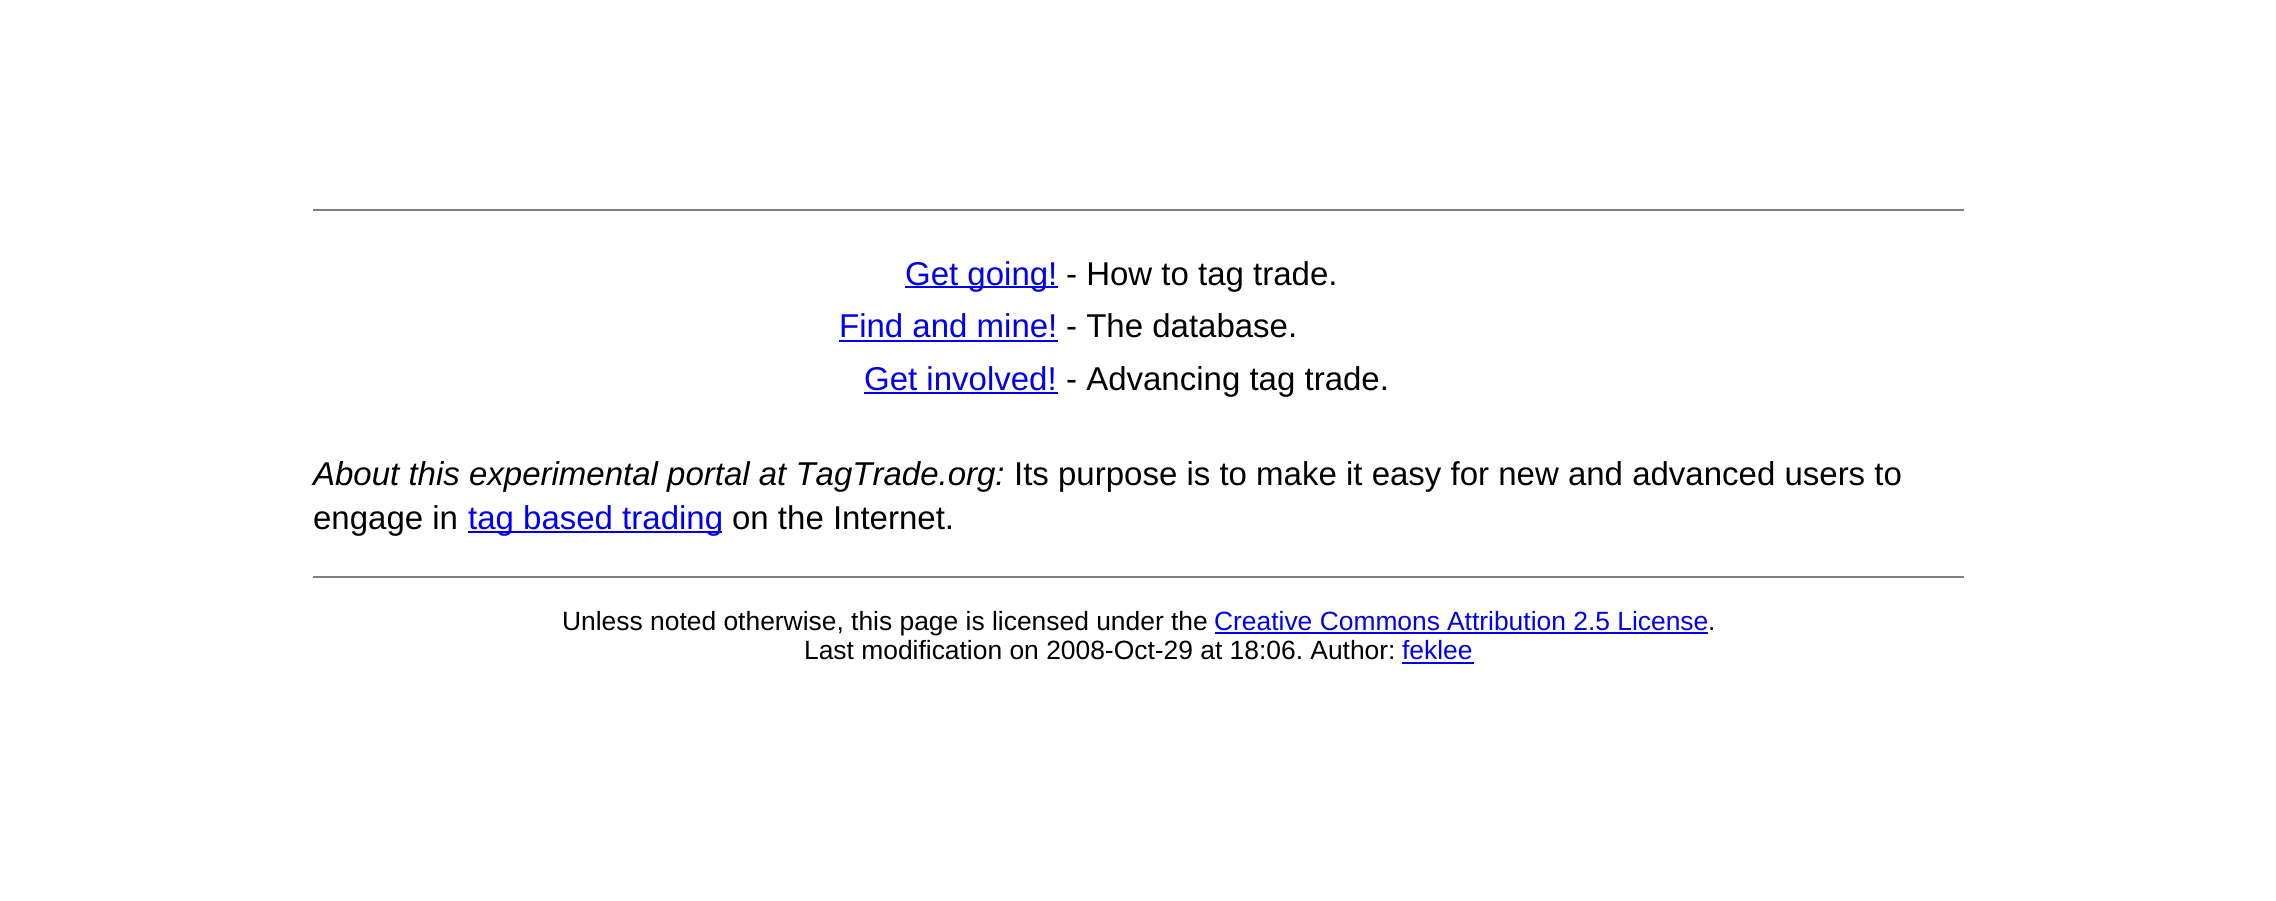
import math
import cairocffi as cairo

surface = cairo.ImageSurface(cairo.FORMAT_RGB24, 2276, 901)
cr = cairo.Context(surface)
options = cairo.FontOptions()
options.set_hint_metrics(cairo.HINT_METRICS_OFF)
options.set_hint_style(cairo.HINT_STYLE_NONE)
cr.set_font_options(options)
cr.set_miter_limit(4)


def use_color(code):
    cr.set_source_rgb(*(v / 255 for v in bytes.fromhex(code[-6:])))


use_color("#ffffff")
cr.paint()
use_color("#808080")
cr.rectangle(313, 209, 1651, 2)
cr.fill()
cr.rectangle(313, 576, 1651, 2)
cr.fill()
use_color("#0000ee")
cr.rectangle(905, 286, 153, 2)
cr.fill()
cr.select_font_face("Liberation Sans")
cr.set_font_size(33)
cr.move_to(905, 285)
cr.show_text("Get going!")
use_color("#000000")
cr.move_to(1066, 285)
cr.show_text("- How to tag trade.")
use_color("#0000ee")
cr.move_to(839, 337)
cr.show_text("Find and mine!")
cr.rectangle(839, 340, 219, 2)
cr.fill()
use_color("#000000")
cr.move_to(1066, 337)
cr.show_text("- The database.")
use_color("#0000ee")
cr.move_to(864, 390)
cr.show_text("Get involved!")
cr.rectangle(864, 392, 194, 2)
cr.fill()
use_color("#000000")
cr.move_to(1066, 390)
cr.show_text("- Advancing tag trade.")
cr.select_font_face("Liberation Sans", cairo.FONT_SLANT_ITALIC)
cr.move_to(313, 485)
cr.show_text("About this experimental portal at TagTrade.org:")
cr.select_font_face("Liberation Sans")
cr.move_to(1014, 485)
cr.show_text("Its purpose is to make it easy for new and advanced users to")
cr.move_to(313, 529)
cr.show_text("engage in")
use_color("#0000ee")
cr.rectangle(468, 531, 254, 2)
cr.fill()
cr.move_to(468, 529)
cr.show_text("tag based trading")
use_color("#000000")
cr.move_to(732, 529)
cr.show_text("on the Internet.")
cr.set_font_size(26.4)
cr.move_to(562, 630)
cr.show_text("Unless noted otherwise, this page is licensed under the")
use_color("#0000ee")
cr.move_to(1214, 630)
cr.show_text("Creative Commons")
cr.rectangle(1215, 632, 493, 2)
cr.fill()
cr.move_to(1447, 630)
cr.show_text("Attribution 2.5 License")
use_color("#000000")
cr.move_to(1708, 630)
cr.show_text(".")
cr.move_to(804, 659)
cr.show_text("Last modification on 2008-Oct-29 at 18:06. Author:")
use_color("#0000ee")
cr.move_to(1402, 659)
cr.show_text("feklee")
cr.rectangle(1402, 662, 72, 2)
cr.fill()
surface.write_to_png("result.png")
